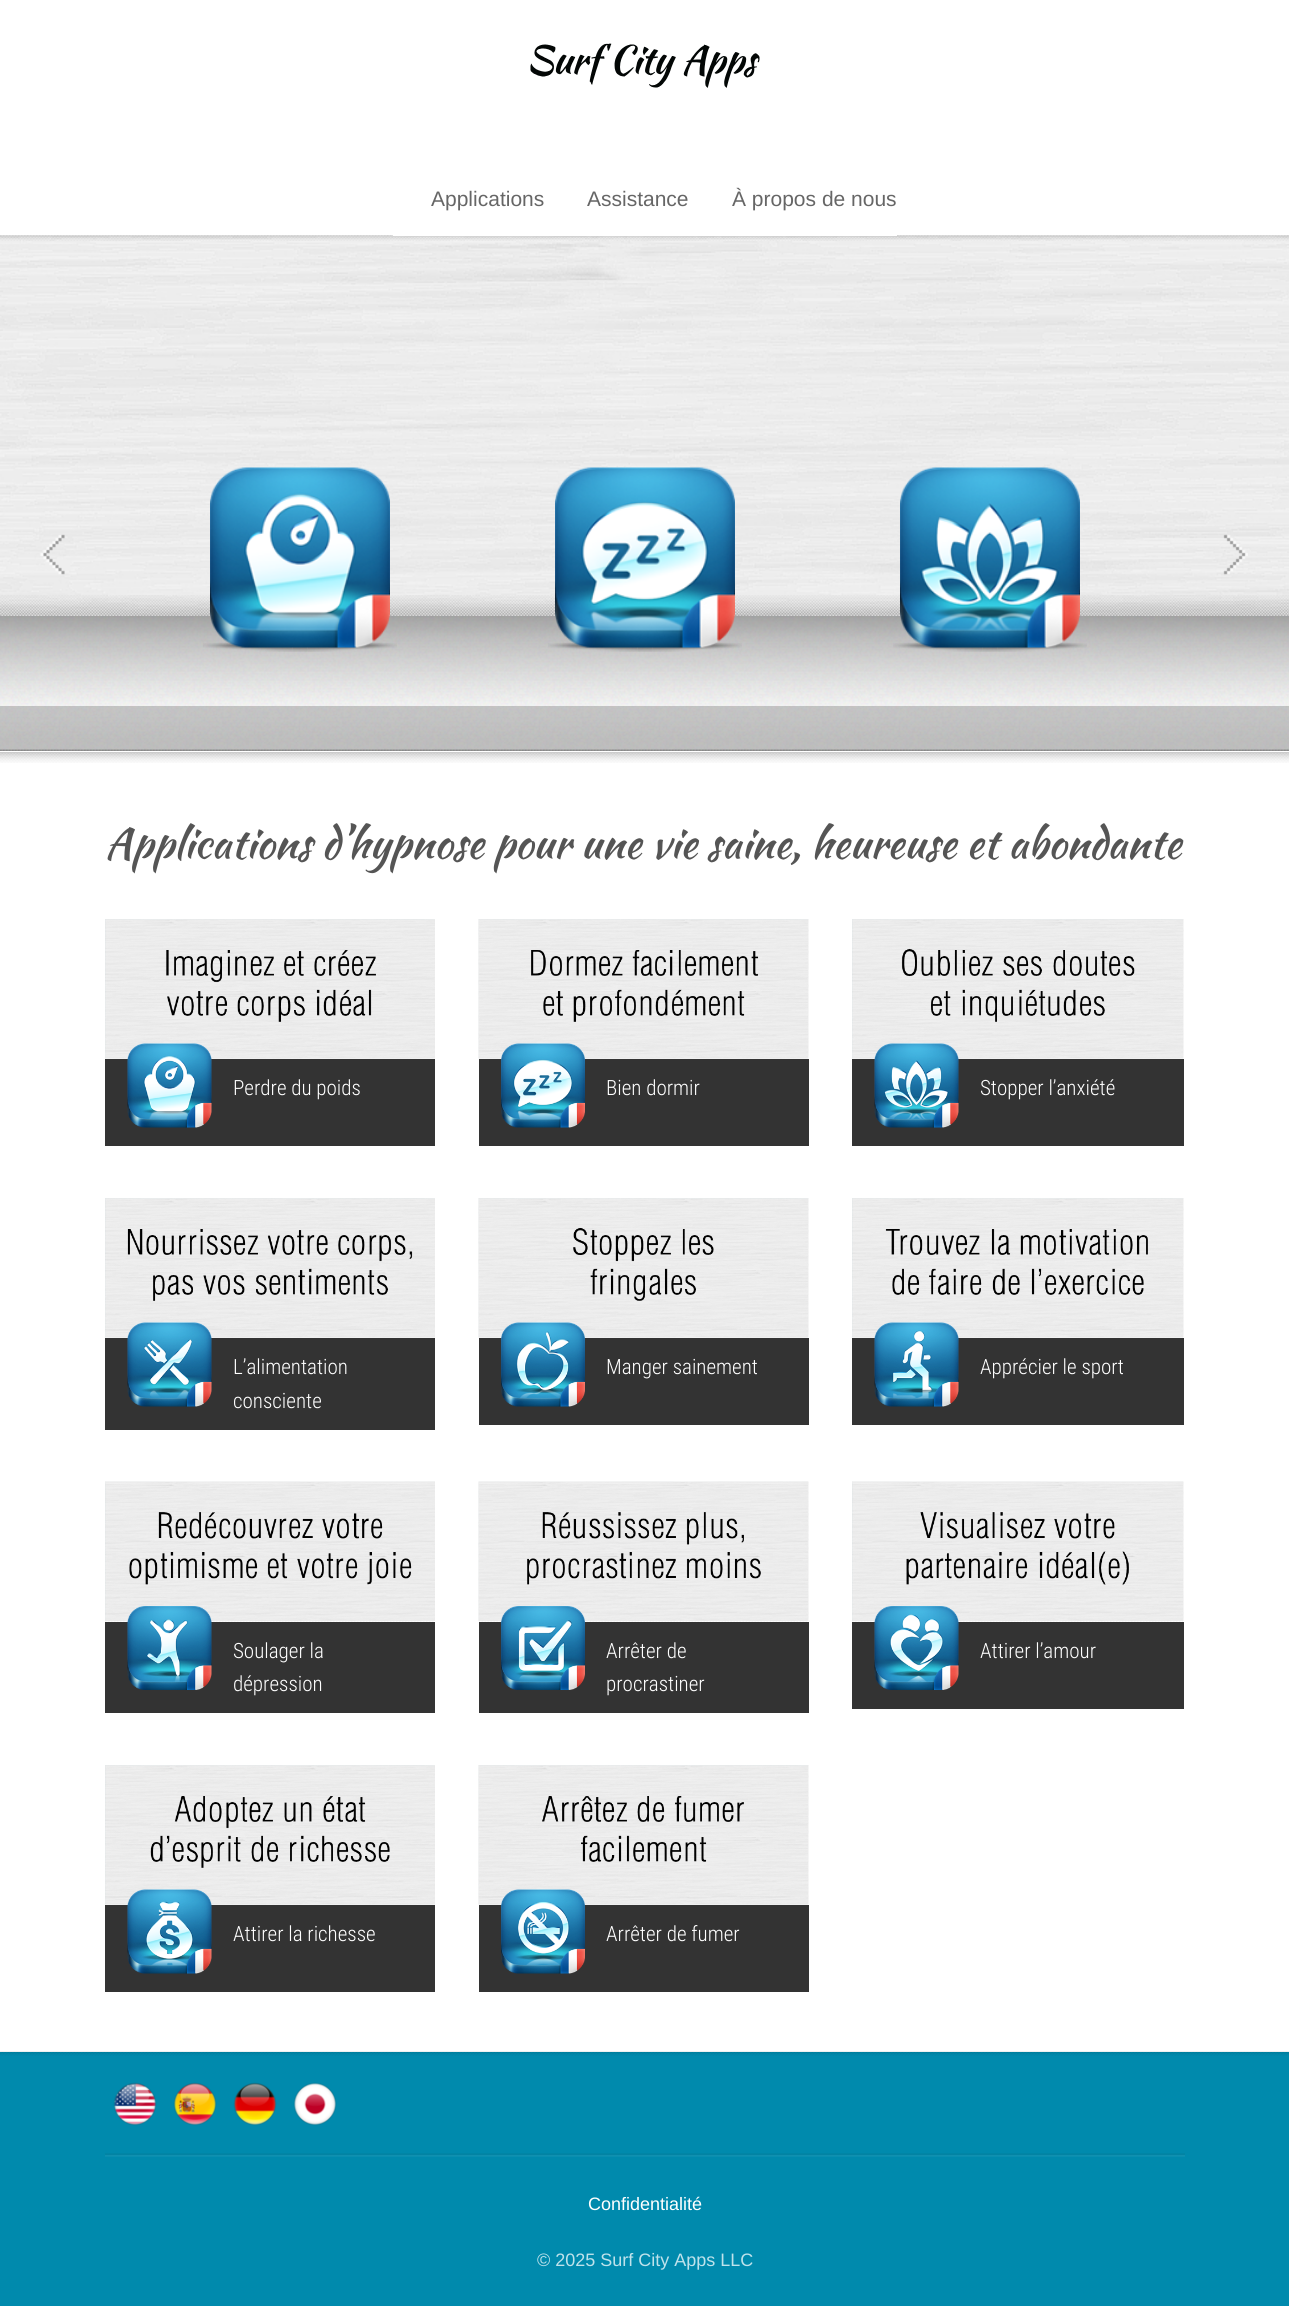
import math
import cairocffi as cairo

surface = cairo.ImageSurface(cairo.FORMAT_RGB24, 1289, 2306)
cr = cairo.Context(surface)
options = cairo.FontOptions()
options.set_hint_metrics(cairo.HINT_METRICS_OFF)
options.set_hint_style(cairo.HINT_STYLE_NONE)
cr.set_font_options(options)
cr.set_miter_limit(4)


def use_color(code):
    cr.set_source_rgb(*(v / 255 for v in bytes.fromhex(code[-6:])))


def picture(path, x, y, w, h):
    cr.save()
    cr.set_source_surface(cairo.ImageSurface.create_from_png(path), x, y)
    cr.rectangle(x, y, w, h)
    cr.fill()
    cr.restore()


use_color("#008aad")
cr.paint()
use_color("#ffffff")
cr.rectangle(0, 0, 1289, 236)
cr.fill()
picture("img1.png", 530, 43, 230, 45)
picture("img3.png", 0, 236, 1289, 380)
picture("img2.png", 0, 235, 1289, 6)
cr.rectangle(393, 235, 504, 1)
cr.fill()
cr.select_font_face("Liberation Sans")
cr.set_font_size(21)
use_color("#666666")
cr.move_to(431, 206)
cr.show_text("Applications")
cr.move_to(587, 206)
cr.show_text("Assistance")
cr.move_to(732, 206)
cr.show_text("À propos de nous")
use_color("#ffffff")
cr.rectangle(0, 616, 1289, 91)
cr.fill()
picture("img19.png", 0, 616, 1289, 90)
picture("img20.png", 0, 616, 1289, 90)
picture("img5.png", 203, 642, 90, 10)
picture("img6.png", 292, 647, 16, 5)
picture("img7.png", 307, 642, 90, 10)
picture("img18.png", 0, 595, 1289, 21)
picture("img4.png", 210, 467, 180, 181)
picture("img9.png", 548, 642, 90, 10)
picture("img10.png", 637, 647, 16, 5)
picture("img11.png", 652, 642, 90, 10)
picture("img8.png", 555, 467, 180, 181)
picture("img13.png", 893, 642, 90, 10)
picture("img14.png", 982, 647, 16, 5)
picture("img15.png", 997, 642, 90, 10)
picture("img12.png", 900, 467, 180, 181)
picture("img16.png", 40, 534, 25, 41)
picture("img17.png", 1223, 534, 25, 41)
cr.rectangle(0, 707, 1289, 1345)
cr.fill()
picture("img21.png", 0, 706, 1289, 45)
picture("img22.png", 0, 706, 1289, 45)
picture("img23.png", 0, 749, 1289, 2)
picture("img24.png", 0, 752, 1289, 11)
cr.select_font_face("Kaushan Script")
cr.set_font_size(42)
use_color("#555555")
cr.move_to(105, 858)
cr.show_text("Applications d’hypnose pour une vie saine, heureuse et abondante")
picture("img25.png", 105, 1058, 330, 1)
picture("img26.png", 105, 919, 330, 140)
use_color("#333333")
cr.rectangle(105, 1059, 330, 87)
cr.fill()
picture("img27.png", 127, 1043, 85, 85)
cr.select_font_face("Roboto Condensed Light")
cr.set_font_size(21)
use_color("#ffffff")
cr.move_to(233, 1095)
cr.show_text("Perdre du poids")
picture("img28.png", 478, 919, 331, 140)
picture("img29.png", 478, 919, 330, 140)
use_color("#333333")
cr.rectangle(479, 1059, 330, 87)
cr.fill()
picture("img30.png", 501, 1043, 84, 85)
use_color("#ffffff")
cr.move_to(606, 1095)
cr.show_text("Bien dormir")
picture("img31.png", 852, 919, 332, 140)
picture("img32.png", 852, 919, 331, 140)
use_color("#333333")
cr.rectangle(852, 1059, 332, 87)
cr.fill()
picture("img33.png", 874, 1043, 85, 85)
use_color("#ffffff")
cr.move_to(980, 1095)
cr.show_text("Stopper l’anxiété")
picture("img25.png", 105, 1337, 330, 1)
picture("img34.png", 105, 1198, 330, 140)
use_color("#333333")
cr.rectangle(105, 1338, 330, 92)
cr.fill()
picture("img35.png", 127, 1322, 85, 85)
use_color("#ffffff")
cr.move_to(233, 1374)
cr.show_text("L’alimentation")
cr.move_to(233, 1408)
cr.show_text("consciente")
picture("img28.png", 478, 1198, 331, 140)
picture("img36.png", 478, 1198, 330, 140)
use_color("#333333")
cr.rectangle(479, 1338, 330, 87)
cr.fill()
picture("img37.png", 501, 1322, 84, 85)
use_color("#ffffff")
cr.move_to(606, 1374)
cr.show_text("Manger sainement")
picture("img31.png", 852, 1198, 332, 140)
picture("img38.png", 852, 1198, 331, 140)
use_color("#333333")
cr.rectangle(852, 1338, 332, 87)
cr.fill()
picture("img39.png", 874, 1322, 85, 85)
use_color("#ffffff")
cr.move_to(980, 1374)
cr.show_text("Apprécier le sport")
picture("img40.png", 105, 1481, 330, 1)
picture("img41.png", 105, 1481, 330, 140)
use_color("#333333")
cr.rectangle(105, 1622, 330, 91)
cr.fill()
picture("img42.png", 105, 1621, 329, 1)
picture("img43.png", 127, 1606, 85, 84)
use_color("#ffffff")
cr.move_to(233, 1658)
cr.show_text("Soulager la")
cr.move_to(233, 1691)
cr.show_text("dépression")
picture("img44.png", 478, 1481, 331, 140)
picture("img45.png", 478, 1481, 330, 140)
use_color("#333333")
cr.rectangle(479, 1622, 330, 91)
cr.fill()
picture("img46.png", 479, 1621, 328, 1)
picture("img47.png", 501, 1606, 84, 84)
use_color("#ffffff")
cr.move_to(606, 1658)
cr.show_text("Arrêter de")
cr.move_to(606, 1691)
cr.show_text("procrastiner")
picture("img48.png", 852, 1481, 332, 140)
picture("img49.png", 852, 1481, 331, 140)
use_color("#333333")
cr.rectangle(852, 1622, 332, 87)
cr.fill()
picture("img50.png", 852, 1621, 331, 1)
picture("img51.png", 874, 1606, 85, 84)
use_color("#ffffff")
cr.move_to(980, 1658)
cr.show_text("Attirer l’amour")
picture("img25.png", 105, 1904, 330, 1)
picture("img52.png", 105, 1765, 330, 140)
use_color("#333333")
cr.rectangle(105, 1905, 330, 87)
cr.fill()
picture("img53.png", 127, 1889, 85, 85)
use_color("#ffffff")
cr.move_to(233, 1941)
cr.show_text("Attirer la richesse")
picture("img28.png", 478, 1765, 331, 140)
picture("img54.png", 478, 1765, 330, 140)
use_color("#333333")
cr.rectangle(479, 1905, 330, 87)
cr.fill()
picture("img55.png", 501, 1889, 84, 85)
use_color("#ffffff")
cr.move_to(606, 1941)
cr.show_text("Arrêter de fumer")
picture("img56.png", 0, 2051, 1289, 5)
picture("img57.png", 105, 2153, 1080, 4)
picture("img58.png", 113, 2082, 44, 44)
picture("img59.png", 173, 2082, 44, 44)
picture("img60.png", 233, 2082, 44, 44)
picture("img61.png", 293, 2082, 44, 44)
cr.select_font_face("Liberation Sans")
cr.set_font_size(18)
cr.move_to(588, 2210)
cr.show_text("Confidentialité")
use_color("#bfe2eb")
cr.move_to(537, 2266)
cr.show_text("© 2025 Surf City Apps LLC")
surface.write_to_png("result.png")
